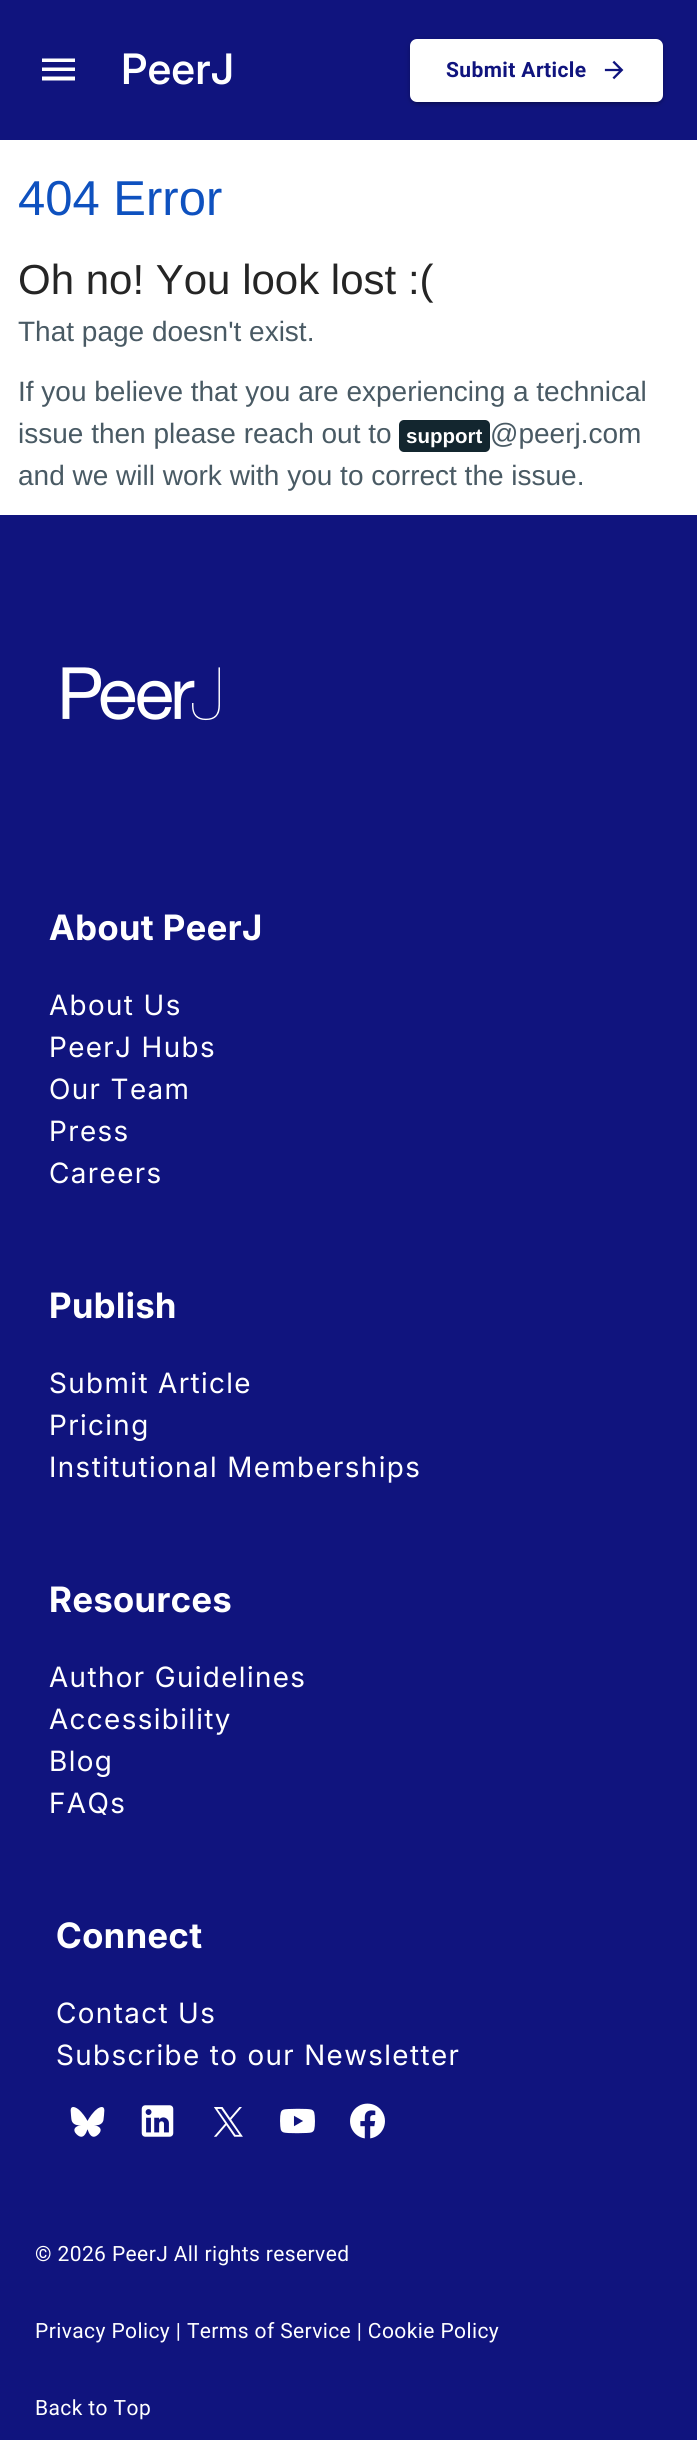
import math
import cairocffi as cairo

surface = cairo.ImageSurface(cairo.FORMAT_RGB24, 697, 2440)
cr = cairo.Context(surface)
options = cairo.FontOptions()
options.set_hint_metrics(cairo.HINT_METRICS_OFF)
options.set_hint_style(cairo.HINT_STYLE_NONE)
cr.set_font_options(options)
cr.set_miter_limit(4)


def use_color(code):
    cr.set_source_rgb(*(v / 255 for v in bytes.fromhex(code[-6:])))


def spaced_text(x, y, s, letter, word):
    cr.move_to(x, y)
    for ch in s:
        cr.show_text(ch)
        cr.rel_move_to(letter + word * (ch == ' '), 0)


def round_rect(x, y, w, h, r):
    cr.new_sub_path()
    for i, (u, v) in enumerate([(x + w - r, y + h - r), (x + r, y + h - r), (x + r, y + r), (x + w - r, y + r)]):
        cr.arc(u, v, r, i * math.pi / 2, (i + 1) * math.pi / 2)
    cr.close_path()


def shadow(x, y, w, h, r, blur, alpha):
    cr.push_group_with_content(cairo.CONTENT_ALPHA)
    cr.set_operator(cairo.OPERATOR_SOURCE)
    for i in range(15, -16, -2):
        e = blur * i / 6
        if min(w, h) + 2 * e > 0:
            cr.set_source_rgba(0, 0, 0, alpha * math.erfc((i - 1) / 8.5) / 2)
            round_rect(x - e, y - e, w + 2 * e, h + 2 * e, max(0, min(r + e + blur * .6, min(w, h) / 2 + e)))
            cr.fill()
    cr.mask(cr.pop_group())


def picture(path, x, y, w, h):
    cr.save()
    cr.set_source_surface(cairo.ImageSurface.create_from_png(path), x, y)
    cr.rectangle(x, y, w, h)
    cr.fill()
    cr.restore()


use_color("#ffffff")
cr.paint()
use_color("#10147e")
cr.rectangle(0, 0, 697, 140)
cr.fill()
use_color("#ffffff")
cr.new_path()
cr.move_to(42, 58.5)
cr.line_to(75, 58.5)
cr.line_to(75, 62)
cr.line_to(42, 62)
cr.close_path()
cr.move_to(42, 67.5)
cr.line_to(75, 67.5)
cr.line_to(75, 71)
cr.line_to(42, 71)
cr.close_path()
cr.move_to(42, 76.5)
cr.line_to(75, 76.5)
cr.line_to(75, 80.5)
cr.line_to(42, 80.5)
cr.close_path()
cr.fill()
cr.select_font_face("Inter Medium")
cr.set_font_size(42)
cr.move_to(121, 84)
cr.show_text("PeerJ")
use_color("#000000")
shadow(410, 40, 253, 63, 7, 4.5, 0.12)
shadow(410, 42, 253, 63, 7, 2, 0.14)
shadow(413, 47, 247, 56, 4, 1, 0.2)
use_color("#ffffff")
round_rect(410, 39, 253, 63, 7)
cr.fill()
cr.select_font_face("Roboto", cairo.FONT_SLANT_NORMAL, cairo.FONT_WEIGHT_BOLD)
cr.set_font_size(21)
use_color("#10147e")
spaced_text(446, 77, "Submit Article", 0.4, 0)
picture("img1.png", 604, 60, 20, 20)
cr.rectangle(0, 515, 697, 1925)
cr.fill()
picture("img2.png", 62, 667, 158, 54)
cr.select_font_face("Inter", cairo.FONT_SLANT_NORMAL, cairo.FONT_WEIGHT_BOLD)
cr.set_font_size(35)
use_color("#ffffff")
spaced_text(49, 940, "About PeerJ", 0.5, 0)
cr.select_font_face("Inter")
cr.set_font_size(28)
spaced_text(49, 1015, "About Us", 1.4, 0)
spaced_text(49, 1057, "PeerJ Hubs", 1.4, 0)
spaced_text(49, 1099, "Our Team", 1.4, 0)
spaced_text(49, 1141, "Press", 1.4, 0)
spaced_text(49, 1183, "Careers", 1.4, 0)
cr.select_font_face("Inter", cairo.FONT_SLANT_NORMAL, cairo.FONT_WEIGHT_BOLD)
cr.set_font_size(35)
spaced_text(49, 1318, "Publish", 0.5, 0)
cr.select_font_face("Inter")
cr.set_font_size(28)
spaced_text(49, 1393, "Submit Article", 1.4, 0)
spaced_text(49, 1435, "Pricing", 1.4, 0)
spaced_text(49, 1477, "Institutional Memberships", 1.4, 0)
cr.select_font_face("Inter", cairo.FONT_SLANT_NORMAL, cairo.FONT_WEIGHT_BOLD)
cr.set_font_size(35)
spaced_text(49, 1612, "Resources", 0.5, 0)
cr.select_font_face("Inter")
cr.set_font_size(28)
spaced_text(49, 1687, "Author Guidelines", 1.4, 0)
spaced_text(49, 1729, "Accessibility", 1.4, 0)
spaced_text(49, 1771, "Blog", 1.4, 0)
spaced_text(49, 1813, "FAQs", 1.4, 0)
cr.select_font_face("Inter", cairo.FONT_SLANT_NORMAL, cairo.FONT_WEIGHT_BOLD)
cr.set_font_size(35)
spaced_text(56, 1948, "Connect", 0.5, 0)
cr.select_font_face("Inter")
cr.set_font_size(28)
spaced_text(56, 2023, "Contact Us", 1.4, 0)
spaced_text(56, 2065, "Subscribe to our Newsletter", 1.4, 0)
picture("img3.png", 70, 2107, 35, 30)
picture("img4.png", 141, 2105, 33, 32)
picture("img5.png", 214, 2107, 29, 30)
picture("img6.png", 280, 2108, 35, 26)
picture("img7.png", 350, 2103, 35, 36)
cr.select_font_face("Roboto")
cr.set_font_size(21)
spaced_text(35, 2261, "© 2026 PeerJ All rights reserved", 0.4, 0)
spaced_text(35, 2338, "Privacy Policy | Terms of Service | Cookie Policy", 0.4, 0)
spaced_text(35, 2415, "Back to Top", 0.4, 0)
cr.select_font_face("Liberation Sans")
cr.set_font_size(49)
use_color("#0e51bf")
cr.move_to(18, 215)
cr.show_text("404 Error")
cr.set_font_size(42)
use_color("#252525")
cr.move_to(18, 294)
cr.show_text("Oh no! You look lost :(")
cr.set_font_size(28)
use_color("#495a64")
cr.move_to(18, 341)
cr.show_text("That page doesn't exist.")
cr.move_to(18, 401)
cr.show_text("If you believe that you are experiencing a technical")
cr.move_to(18, 443)
cr.show_text("issue then please reach out to")
use_color("#13262f")
round_rect(399, 420, 91, 32, 5)
cr.fill()
cr.select_font_face("Liberation Sans", cairo.FONT_SLANT_NORMAL, cairo.FONT_WEIGHT_BOLD)
cr.set_font_size(20.5)
use_color("#ffffff")
cr.move_to(406, 443)
cr.show_text("support")
cr.select_font_face("Liberation Sans")
cr.set_font_size(28)
use_color("#495a64")
cr.move_to(490, 443)
cr.show_text("@peerj.com")
cr.move_to(18, 485)
cr.show_text("and we will work with you to correct the issue.")
surface.write_to_png("result.png")
